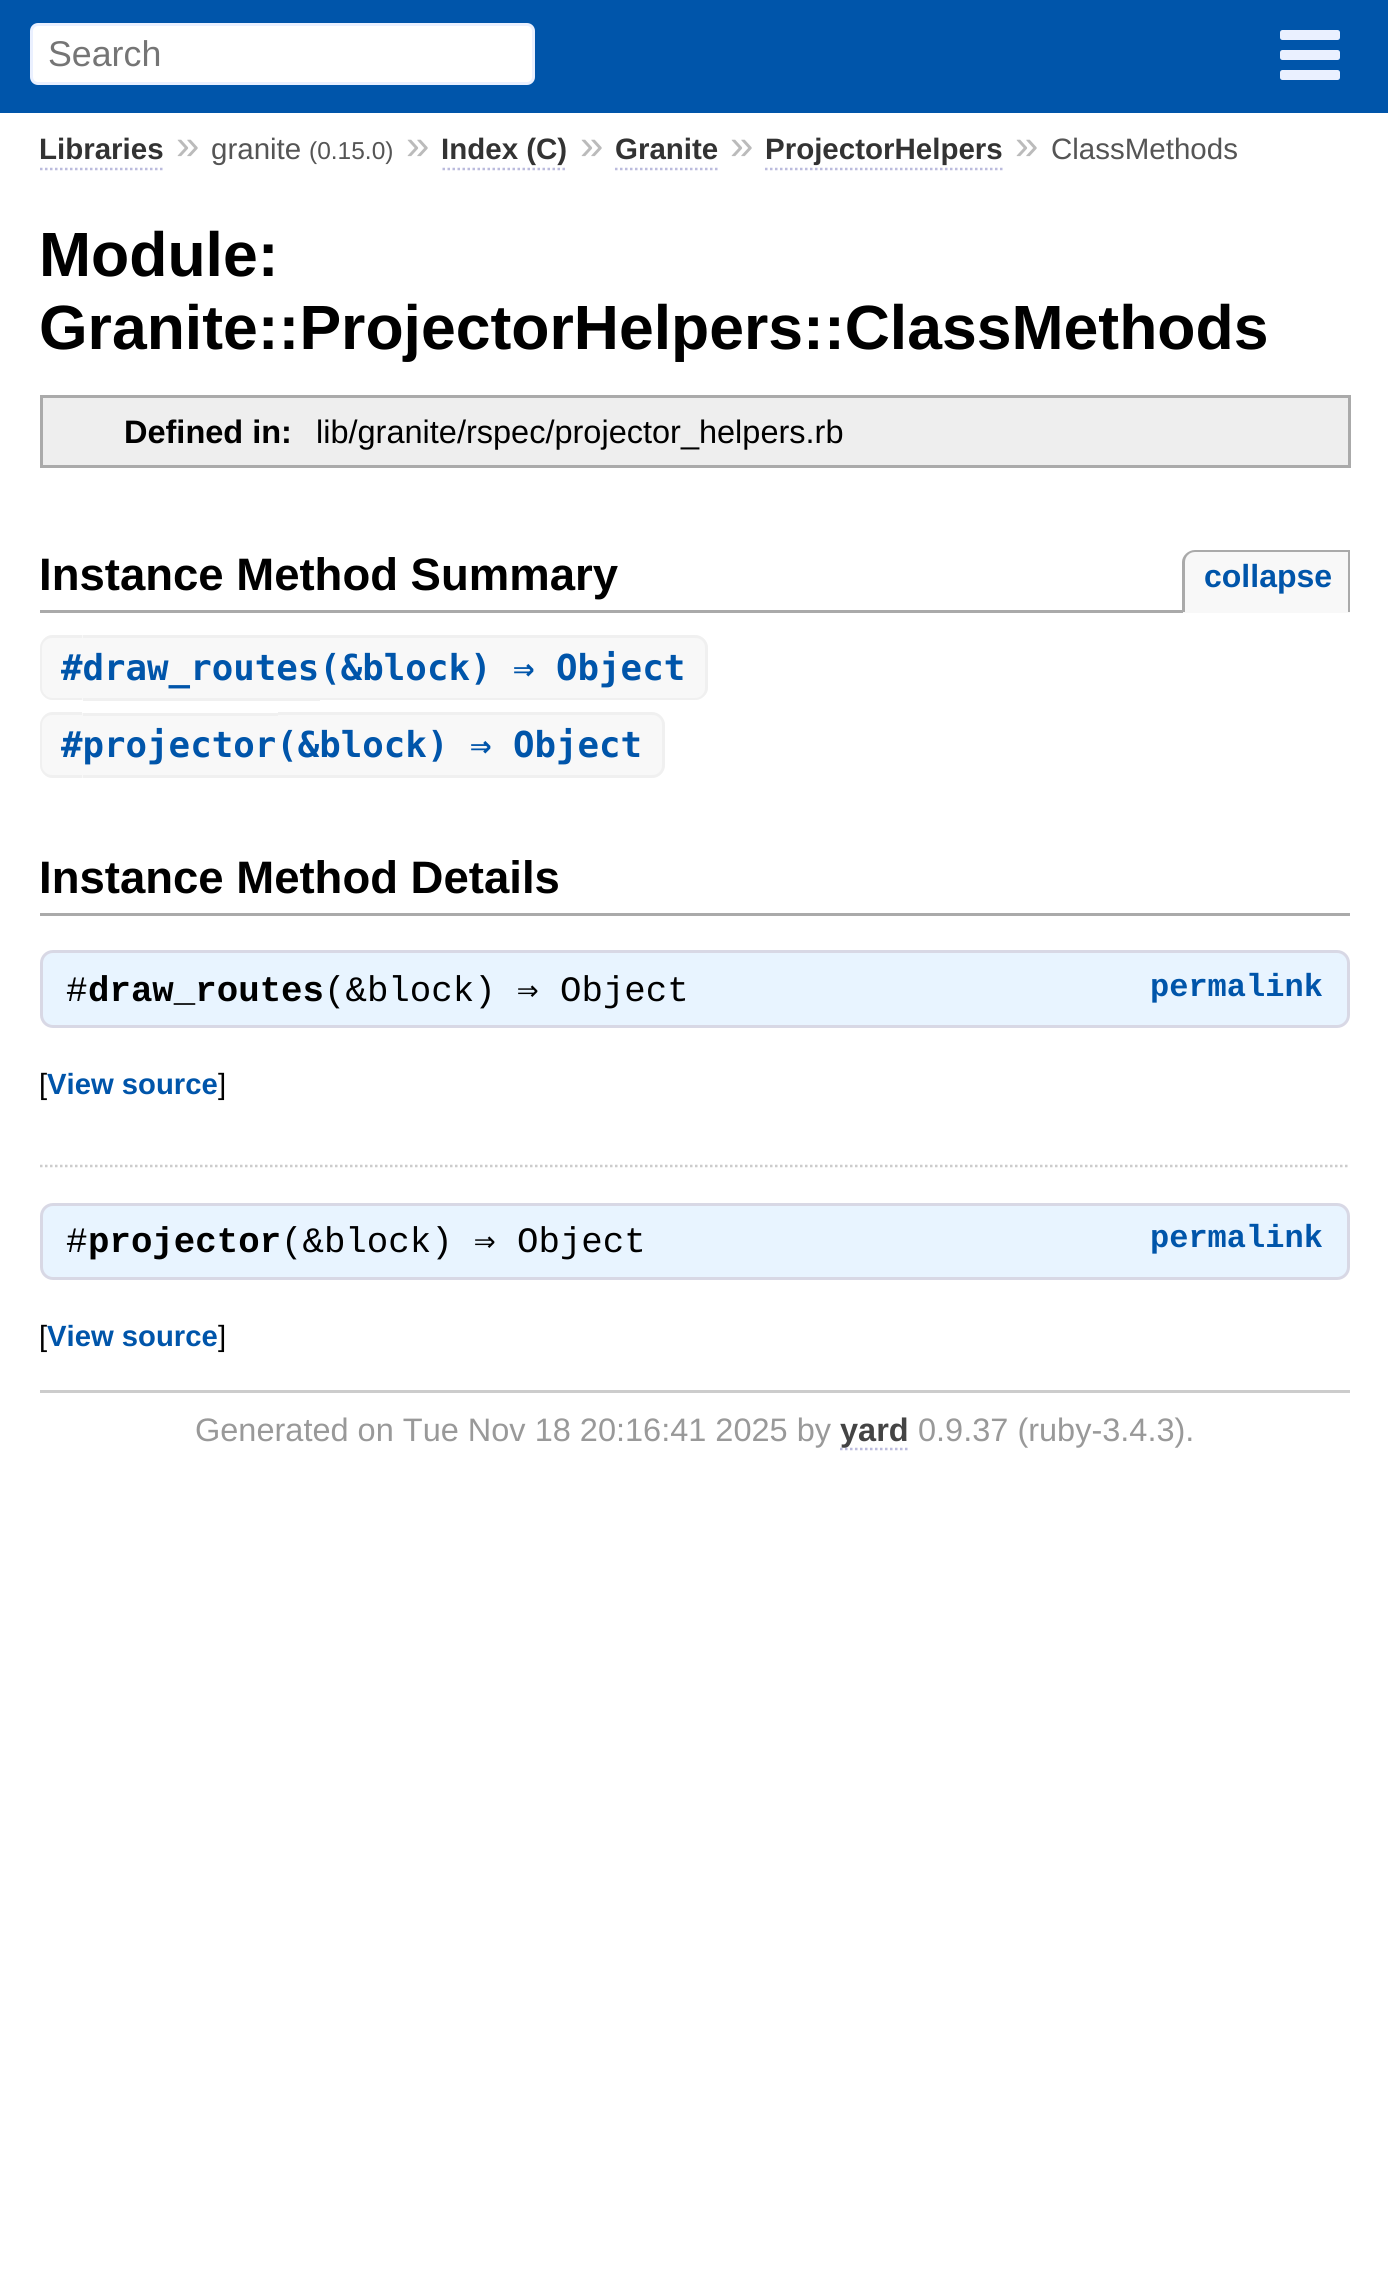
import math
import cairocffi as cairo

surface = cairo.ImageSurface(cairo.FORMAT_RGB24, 1388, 2283)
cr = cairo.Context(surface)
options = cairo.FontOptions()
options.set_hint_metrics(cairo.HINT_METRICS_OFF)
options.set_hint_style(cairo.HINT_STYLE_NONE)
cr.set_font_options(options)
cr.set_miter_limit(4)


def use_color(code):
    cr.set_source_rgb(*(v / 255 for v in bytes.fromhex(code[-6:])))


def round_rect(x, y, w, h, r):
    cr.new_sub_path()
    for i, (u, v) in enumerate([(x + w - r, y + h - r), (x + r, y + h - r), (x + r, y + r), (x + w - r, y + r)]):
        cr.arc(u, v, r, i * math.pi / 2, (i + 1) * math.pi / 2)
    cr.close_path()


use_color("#ffffff")
cr.paint()
use_color("#0055aa")
cr.rectangle(0, 0, 1388, 113)
cr.fill()
use_color("#ffffff")
round_rect(31.5, 24.5, 502, 59, 6.5)
cr.fill_preserve()
use_color("#eaf0ff")
cr.set_line_width(3)
cr.stroke()
cr.select_font_face("Liberation Sans")
cr.set_font_size(35.75)
use_color("#757575")
cr.move_to(48, 66)
cr.show_text("Search")
use_color("#eaf0ff")
round_rect(1280, 30, 60, 10, 2.5)
cr.fill()
round_rect(1280, 50, 60, 10, 2.5)
cr.fill()
round_rect(1280, 70, 60, 10, 2.5)
cr.fill()
cr.select_font_face("Liberation Sans", cairo.FONT_SLANT_NORMAL, cairo.FONT_WEIGHT_BOLD)
cr.set_font_size(29.5)
use_color("#333333")
cr.move_to(39, 159)
cr.show_text("Libraries")
cr.new_path()
cr.move_to(40, 169)
cr.line_to(165, 169)
use_color("#bbbbdd")
cr.set_line_width(2.5)
cr.set_dash([2.5, 2.5])
cr.stroke()
cr.select_font_face("Liberation Sans")
cr.set_font_size(42)
use_color("#bbbbbb")
cr.move_to(176, 159)
cr.show_text("»")
cr.set_font_size(29.5)
use_color("#555555")
cr.move_to(211, 159)
cr.show_text("granite")
cr.set_font_size(24.5)
cr.move_to(309, 159)
cr.show_text("(0.15.0)")
cr.set_font_size(42)
use_color("#bbbbbb")
cr.move_to(406, 159)
cr.show_text("»")
cr.select_font_face("Liberation Sans", cairo.FONT_SLANT_NORMAL, cairo.FONT_WEIGHT_BOLD)
cr.set_font_size(29.5)
use_color("#333333")
cr.move_to(441, 159)
cr.show_text("Index (C)")
cr.new_path()
cr.move_to(442.5, 169)
cr.line_to(567.5, 169)
use_color("#bbbbdd")
cr.stroke()
cr.select_font_face("Liberation Sans")
cr.set_font_size(42)
use_color("#bbbbbb")
cr.move_to(580, 159)
cr.show_text("»")
cr.select_font_face("Liberation Sans", cairo.FONT_SLANT_NORMAL, cairo.FONT_WEIGHT_BOLD)
cr.set_font_size(29.5)
use_color("#333333")
cr.move_to(615, 159)
cr.show_text("Granite")
cr.new_path()
cr.move_to(615, 169)
cr.line_to(717.5, 169)
use_color("#bbbbdd")
cr.stroke()
cr.select_font_face("Liberation Sans")
cr.set_font_size(42)
use_color("#bbbbbb")
cr.move_to(730, 159)
cr.show_text("»")
cr.select_font_face("Liberation Sans", cairo.FONT_SLANT_NORMAL, cairo.FONT_WEIGHT_BOLD)
cr.set_font_size(29.5)
use_color("#333333")
cr.move_to(765, 159)
cr.show_text("ProjectorHelpers")
cr.new_path()
cr.move_to(765, 169)
cr.line_to(1002.5, 169)
use_color("#bbbbdd")
cr.stroke()
cr.select_font_face("Liberation Sans")
cr.set_font_size(42)
use_color("#bbbbbb")
cr.move_to(1015, 159)
cr.show_text("»")
cr.set_font_size(29.5)
use_color("#555555")
cr.move_to(1051, 159)
cr.show_text("ClassMethods")
cr.select_font_face("Liberation Sans", cairo.FONT_SLANT_NORMAL, cairo.FONT_WEIGHT_BOLD)
cr.set_font_size(62.5)
use_color("#000000")
cr.move_to(39, 276)
cr.show_text("Module:")
cr.move_to(39, 349)
cr.show_text("Granite::ProjectorHelpers::ClassMethods")
use_color("#eeeeee")
cr.rectangle(43, 398, 1305, 67)
cr.fill()
use_color("#aaaaaa")
cr.rectangle(40, 395, 1310, 3)
cr.fill()
cr.rectangle(40, 465, 278, 3)
cr.fill()
cr.rectangle(40, 395, 3, 73)
cr.fill()
cr.set_font_size(32.5)
use_color("#000000")
cr.move_to(124, 443)
cr.show_text("Defined in:")
use_color("#aaaaaa")
cr.rectangle(1348, 395, 3, 73)
cr.fill()
cr.rectangle(318, 465, 1032, 3)
cr.fill()
cr.select_font_face("Liberation Sans")
use_color("#000000")
cr.move_to(316, 443)
cr.show_text("lib/granite/rspec/projector_helpers.rb")
use_color("#aaaaaa")
cr.rectangle(40, 610, 1143, 3)
cr.fill()
cr.select_font_face("Liberation Sans", cairo.FONT_SLANT_NORMAL, cairo.FONT_WEIGHT_BOLD)
cr.set_font_size(45.5)
use_color("#000000")
cr.move_to(39, 590)
cr.show_text("Instance Method Summary")
use_color("#f8f8f8")
cr.new_path()
cr.move_to(1196, 550)
cr.line_to(1350, 550)
cr.line_to(1350, 613)
cr.line_to(1183, 613)
cr.line_to(1183, 563)
cr.curve_to(1183, 556, 1189, 550, 1196, 550)
cr.close_path()
cr.fill()
use_color("#aaaaaa")
cr.set_fill_rule(cairo.FILL_RULE_EVEN_ODD)
cr.new_path()
cr.move_to(1195, 550)
cr.line_to(1350, 550)
cr.line_to(1350, 612)
cr.line_to(1182, 612)
cr.line_to(1182, 562)
cr.curve_to(1182, 556, 1188, 550, 1195, 550)
cr.close_path()
cr.move_to(1195, 552)
cr.line_to(1348, 552)
cr.line_to(1348, 612)
cr.line_to(1185, 612)
cr.line_to(1185, 562)
cr.curve_to(1185, 557, 1189, 552, 1195, 552)
cr.close_path()
cr.fill()
cr.set_font_size(32)
use_color("#0055aa")
cr.move_to(1204, 587)
cr.show_text("collapse")
use_color("#f8f8f8")
cr.new_path()
cr.move_to(53, 635)
cr.line_to(83, 635)
cr.line_to(83, 700)
cr.line_to(53, 700)
cr.curve_to(46, 700, 40, 694, 40, 687)
cr.line_to(40, 648)
cr.curve_to(40, 641, 46, 635, 53, 635)
cr.close_path()
cr.fill()
use_color("#f0f0f0")
cr.new_path()
cr.move_to(52, 635)
cr.line_to(82, 635)
cr.line_to(82, 700)
cr.line_to(52, 700)
cr.curve_to(46, 700, 40, 694, 40, 688)
cr.line_to(40, 648)
cr.curve_to(40, 641, 46, 635, 52, 635)
cr.close_path()
cr.move_to(52, 638)
cr.line_to(82, 638)
cr.line_to(82, 698)
cr.line_to(52, 698)
cr.curve_to(47, 698, 42, 693, 42, 688)
cr.line_to(42, 648)
cr.curve_to(42, 642, 47, 638, 52, 638)
cr.close_path()
cr.fill()
use_color("#f8f8f8")
cr.rectangle(83, 638, 237, 60)
cr.fill()
cr.new_path()
cr.move_to(320, 635)
cr.line_to(695, 635)
cr.curve_to(702, 635, 708, 641, 708, 648)
cr.line_to(708, 687)
cr.curve_to(708, 694, 702, 700, 695, 700)
cr.line_to(320, 700)
cr.close_path()
cr.fill()
use_color("#f0f0f0")
cr.new_path()
cr.move_to(320, 635)
cr.line_to(695, 635)
cr.curve_to(702, 635, 708, 641, 708, 648)
cr.line_to(708, 688)
cr.curve_to(708, 694, 702, 700, 695, 700)
cr.line_to(320, 700)
cr.close_path()
cr.move_to(320, 638)
cr.line_to(695, 638)
cr.curve_to(701, 638, 705, 642, 705, 648)
cr.line_to(705, 688)
cr.curve_to(705, 693, 701, 698, 695, 698)
cr.line_to(320, 698)
cr.close_path()
cr.fill()
cr.select_font_face("DejaVu Sans Mono", cairo.FONT_SLANT_NORMAL, cairo.FONT_WEIGHT_BOLD)
cr.set_font_size(35.75)
use_color("#0055aa")
cr.move_to(61, 680)
cr.show_text("#draw_routes(&block) ⇒ Object")
use_color("#f0f0f0")
cr.rectangle(83, 635, 237, 3)
cr.fill()
cr.rectangle(83, 698, 237, 3)
cr.fill()
use_color("#f8f8f8")
cr.new_path()
cr.move_to(53, 713)
cr.line_to(83, 713)
cr.line_to(83, 778)
cr.line_to(53, 778)
cr.curve_to(46, 778, 40, 772, 40, 765)
cr.line_to(40, 726)
cr.curve_to(40, 719, 46, 713, 53, 713)
cr.close_path()
cr.fill()
use_color("#f0f0f0")
cr.new_path()
cr.move_to(52, 712)
cr.line_to(82, 712)
cr.line_to(82, 778)
cr.line_to(52, 778)
cr.curve_to(46, 778, 40, 772, 40, 765)
cr.line_to(40, 725)
cr.curve_to(40, 718, 46, 712, 52, 712)
cr.close_path()
cr.move_to(52, 715)
cr.line_to(82, 715)
cr.line_to(82, 775)
cr.line_to(52, 775)
cr.curve_to(47, 775, 42, 771, 42, 765)
cr.line_to(42, 725)
cr.curve_to(42, 719, 47, 715, 52, 715)
cr.close_path()
cr.fill()
use_color("#f8f8f8")
cr.rectangle(83, 716, 195, 59)
cr.fill()
cr.new_path()
cr.move_to(278, 713)
cr.line_to(652, 713)
cr.curve_to(659, 713, 665, 719, 665, 726)
cr.line_to(665, 765)
cr.curve_to(665, 772, 659, 778, 652, 778)
cr.line_to(278, 778)
cr.close_path()
cr.fill()
use_color("#f0f0f0")
cr.new_path()
cr.move_to(278, 712)
cr.line_to(652, 712)
cr.curve_to(659, 712, 665, 718, 665, 725)
cr.line_to(665, 765)
cr.curve_to(665, 772, 659, 778, 652, 778)
cr.line_to(278, 778)
cr.close_path()
cr.move_to(278, 715)
cr.line_to(652, 715)
cr.curve_to(658, 715, 662, 719, 662, 725)
cr.line_to(662, 765)
cr.curve_to(662, 771, 658, 775, 652, 775)
cr.line_to(278, 775)
cr.close_path()
cr.fill()
use_color("#0055aa")
cr.move_to(61, 757)
cr.show_text("#projector(&block) ⇒ Object")
use_color("#f0f0f0")
cr.rectangle(83, 713, 195, 3)
cr.fill()
cr.rectangle(83, 775, 195, 3)
cr.fill()
use_color("#aaaaaa")
cr.rectangle(40, 913, 1310, 3)
cr.fill()
cr.select_font_face("Liberation Sans", cairo.FONT_SLANT_NORMAL, cairo.FONT_WEIGHT_BOLD)
cr.set_font_size(45.5)
use_color("#000000")
cr.move_to(39, 893)
cr.show_text("Instance Method Details")
use_color("#e8f4ff")
round_rect(41.5, 951.5, 1307, 75, 11.5)
cr.fill_preserve()
use_color("#d8d8e5")
cr.set_line_width(3)
cr.set_dash([])
cr.stroke()
cr.select_font_face("Liberation Mono")
cr.set_font_size(35.75)
use_color("#000000")
cr.move_to(66, 1001)
cr.show_text("#")
cr.select_font_face("Liberation Mono", cairo.FONT_SLANT_NORMAL, cairo.FONT_WEIGHT_BOLD)
cr.move_to(88, 1001)
cr.show_text("draw_routes")
cr.select_font_face("Liberation Mono")
cr.move_to(324, 1001)
cr.show_text("(&block)")
cr.select_font_face("DejaVu Sans Mono")
cr.move_to(517, 1001)
cr.show_text("⇒")
cr.select_font_face("Liberation Mono")
cr.move_to(560, 1001)
cr.show_text("Object")
cr.select_font_face("Liberation Mono", cairo.FONT_SLANT_NORMAL, cairo.FONT_WEIGHT_BOLD)
cr.set_font_size(32)
use_color("#0055aa")
cr.move_to(1150, 996)
cr.show_text("permalink")
cr.select_font_face("Liberation Sans")
cr.set_font_size(29.25)
use_color("#000000")
cr.move_to(39, 1094)
cr.show_text("[")
cr.select_font_face("Liberation Sans", cairo.FONT_SLANT_NORMAL, cairo.FONT_WEIGHT_BOLD)
use_color("#0055aa")
cr.move_to(47, 1094)
cr.show_text("View source")
cr.select_font_face("Liberation Sans")
use_color("#000000")
cr.move_to(218, 1094)
cr.show_text("]")
cr.new_path()
cr.move_to(40, 1166)
cr.line_to(1350, 1166)
use_color("#cccccc")
cr.set_line_width(2.5)
cr.set_dash([2.5, 2.5])
cr.stroke()
use_color("#e8f4ff")
round_rect(41.5, 1204.5, 1307, 74, 11.5)
cr.fill_preserve()
use_color("#d8d8e5")
cr.set_line_width(3)
cr.set_dash([])
cr.stroke()
cr.select_font_face("Liberation Mono")
cr.set_font_size(35.75)
use_color("#000000")
cr.move_to(66, 1252)
cr.show_text("#")
cr.select_font_face("Liberation Mono", cairo.FONT_SLANT_NORMAL, cairo.FONT_WEIGHT_BOLD)
cr.move_to(88, 1252)
cr.show_text("projector")
cr.select_font_face("Liberation Mono")
cr.move_to(281, 1252)
cr.show_text("(&block)")
cr.select_font_face("DejaVu Sans Mono")
cr.move_to(474, 1252)
cr.show_text("⇒")
cr.select_font_face("Liberation Mono")
cr.move_to(517, 1252)
cr.show_text("Object")
cr.select_font_face("Liberation Mono", cairo.FONT_SLANT_NORMAL, cairo.FONT_WEIGHT_BOLD)
cr.set_font_size(32)
use_color("#0055aa")
cr.move_to(1150, 1247)
cr.show_text("permalink")
cr.select_font_face("Liberation Sans")
cr.set_font_size(29.25)
use_color("#000000")
cr.move_to(39, 1346)
cr.show_text("[")
cr.select_font_face("Liberation Sans", cairo.FONT_SLANT_NORMAL, cairo.FONT_WEIGHT_BOLD)
use_color("#0055aa")
cr.move_to(47, 1346)
cr.show_text("View source")
cr.select_font_face("Liberation Sans")
use_color("#000000")
cr.move_to(218, 1346)
cr.show_text("]")
use_color("#cccccc")
cr.rectangle(40, 1390, 1310, 3)
cr.fill()
cr.set_font_size(32.5)
use_color("#999999")
cr.move_to(195, 1441)
cr.show_text("Generated on Tue Nov 18 20:16:41 2025 by")
cr.new_path()
cr.move_to(840, 1449)
cr.line_to(910, 1449)
use_color("#bbbbdd")
cr.set_line_width(2.5)
cr.set_dash([2.5, 2.5])
cr.stroke()
cr.select_font_face("Liberation Sans", cairo.FONT_SLANT_NORMAL, cairo.FONT_WEIGHT_BOLD)
use_color("#444444")
cr.move_to(840, 1441)
cr.show_text("yard")
cr.select_font_face("Liberation Sans")
use_color("#999999")
cr.move_to(918, 1441)
cr.show_text("0.9.37 (ruby-3.4.3).")
surface.write_to_png("result.png")
